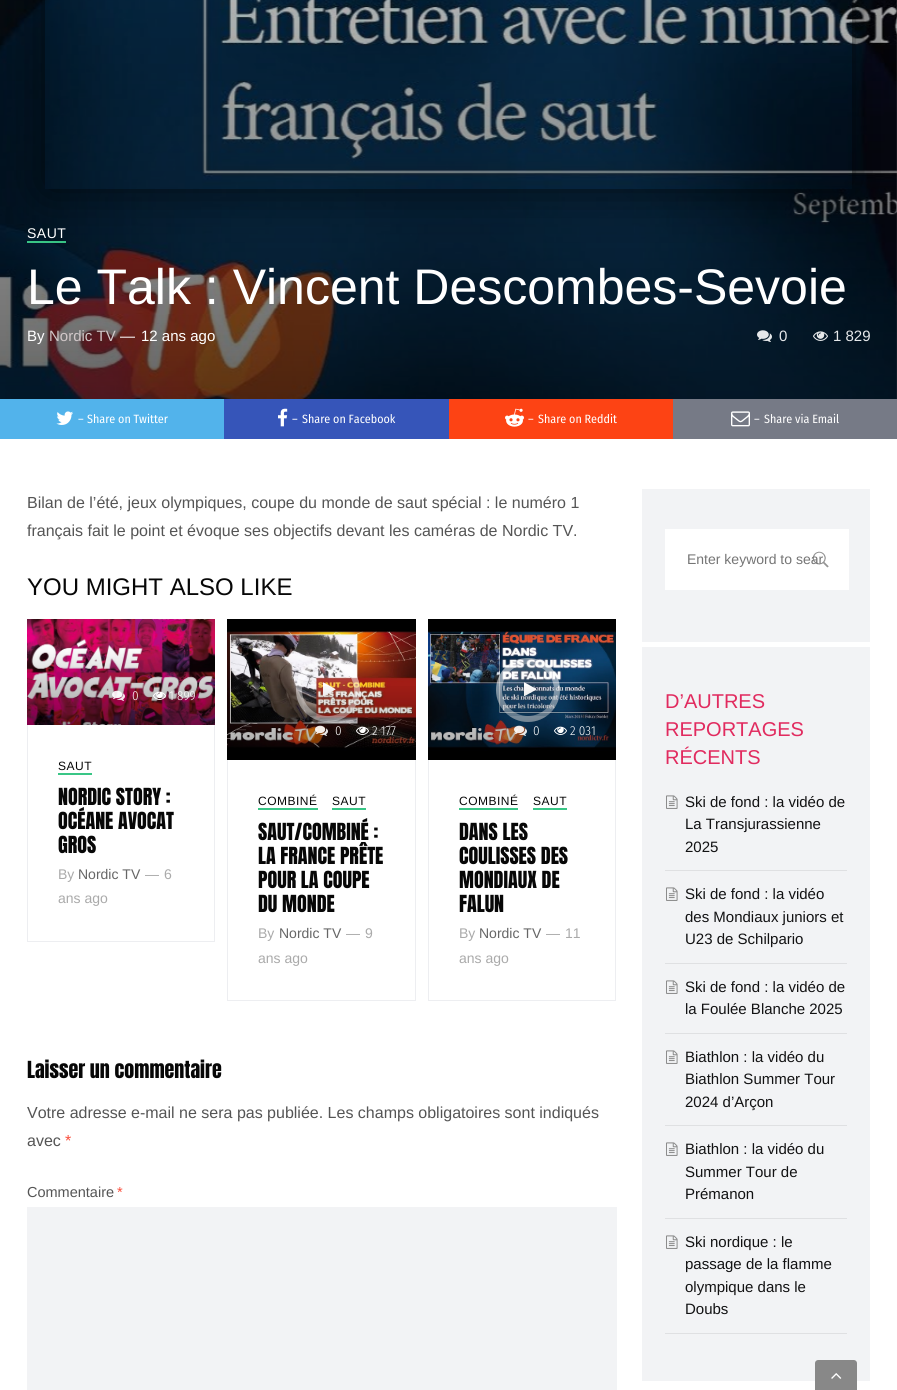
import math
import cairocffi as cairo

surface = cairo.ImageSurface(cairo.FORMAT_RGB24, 897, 1390)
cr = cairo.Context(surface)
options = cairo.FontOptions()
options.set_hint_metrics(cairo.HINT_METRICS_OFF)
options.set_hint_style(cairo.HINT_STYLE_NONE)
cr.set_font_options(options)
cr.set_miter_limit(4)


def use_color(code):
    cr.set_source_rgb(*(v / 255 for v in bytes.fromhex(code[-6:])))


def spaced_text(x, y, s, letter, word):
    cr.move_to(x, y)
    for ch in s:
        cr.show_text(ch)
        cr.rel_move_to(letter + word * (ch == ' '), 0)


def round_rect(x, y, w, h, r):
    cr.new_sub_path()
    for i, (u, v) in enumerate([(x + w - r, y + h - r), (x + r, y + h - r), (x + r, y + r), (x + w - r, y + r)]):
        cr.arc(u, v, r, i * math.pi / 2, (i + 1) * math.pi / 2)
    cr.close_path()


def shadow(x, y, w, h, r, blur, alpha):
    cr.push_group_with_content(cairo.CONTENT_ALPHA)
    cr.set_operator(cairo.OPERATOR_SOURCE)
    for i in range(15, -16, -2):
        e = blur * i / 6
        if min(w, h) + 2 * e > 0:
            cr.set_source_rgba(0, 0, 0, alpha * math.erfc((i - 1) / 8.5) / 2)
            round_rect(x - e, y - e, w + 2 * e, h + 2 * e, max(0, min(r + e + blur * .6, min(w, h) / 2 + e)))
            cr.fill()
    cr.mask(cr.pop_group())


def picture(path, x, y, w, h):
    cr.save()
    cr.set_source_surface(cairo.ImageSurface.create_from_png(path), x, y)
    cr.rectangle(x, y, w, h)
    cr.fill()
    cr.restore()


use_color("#ffffff")
cr.paint()
picture("img1.png", 0, 0, 897, 399)
gradient = cairo.LinearGradient(448, -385, 449, 399)
gradient.add_color_stop_rgba(0, 0, 0, 0, 0)
gradient.add_color_stop_rgba(1, 0, 0, 0, 0.6)
cr.set_source(gradient)
cr.rectangle(0, 0, 897, 399)
cr.fill()
use_color("#39c686")
cr.rectangle(27, 241, 39, 2)
cr.fill()
cr.save()
cr.set_fill_rule(cairo.FILL_RULE_EVEN_ODD)
cr.new_path()
cr.move_to(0, 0)
cr.line_to(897, 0)
cr.line_to(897, 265)
cr.line_to(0, 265)
cr.close_path()
cr.move_to(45, -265)
cr.line_to(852, -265)
cr.line_to(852, 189)
cr.line_to(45, 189)
cr.close_path()
cr.clip()
use_color("#000000")
shadow(45, -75, 807, 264, 0, 25, 0.7)
cr.restore()
cr.select_font_face("Arimo")
cr.set_font_size(14)
use_color("#ffffff")
spaced_text(27, 238, "SAUT", 0.5, 0)
cr.set_font_size(50)
cr.move_to(27, 304)
cr.show_text("Le Talk : Vincent Descombes-Sevoie")
cr.set_font_size(15)
cr.move_to(27, 341)
cr.show_text("By")
use_color("#d0c7c8")
cr.move_to(49, 341)
cr.show_text("Nordic TV")
use_color("#ffffff")
cr.move_to(120, 341)
cr.show_text("—")
cr.move_to(141, 341)
cr.show_text("12 ans ago")
picture("img2.png", 757, 330, 15, 12)
use_color("#e6e8ea")
cr.move_to(779, 341)
cr.show_text("0")
picture("img3.png", 813, 331, 15, 10)
cr.move_to(833, 341)
cr.show_text("1 829")
use_color("#52b3eb")
cr.rectangle(0, 399, 224, 40)
cr.fill()
picture("img4.png", 56, 411, 17, 14)
cr.select_font_face("Fira Sans Condensed")
cr.set_font_size(12)
use_color("#ffffff")
cr.move_to(78, 423)
cr.show_text("–")
cr.move_to(87, 423)
cr.show_text("Share on Twitter")
use_color("#3655b9")
cr.rectangle(224, 399, 225, 40)
cr.fill()
picture("img5.png", 278, 408, 10, 19)
use_color("#ffffff")
cr.move_to(292, 423)
cr.show_text("–")
cr.move_to(302, 423)
cr.show_text("Share on Facebook")
use_color("#fd4314")
cr.rectangle(449, 399, 224, 40)
cr.fill()
picture("img6.png", 505, 408, 19, 19)
use_color("#ffffff")
cr.move_to(528, 423)
cr.show_text("–")
cr.move_to(538, 423)
cr.show_text("Share on Reddit")
use_color("#767a86")
cr.rectangle(673, 399, 224, 40)
cr.fill()
picture("img7.png", 731, 411, 19, 16)
use_color("#ffffff")
cr.move_to(754, 423)
cr.show_text("–")
cr.move_to(764, 423)
cr.show_text("Share via Email")
cr.select_font_face("Arimo")
cr.set_font_size(16)
use_color("#555555")
cr.move_to(27, 508)
cr.show_text("Bilan de l’été, jeux olympiques, coupe du monde de saut spécial : le numéro 1")
cr.move_to(27, 536)
cr.show_text("français fait le point et évoque ses objectifs devant les caméras de Nordic TV.")
cr.set_font_size(24)
use_color("#070707")
cr.move_to(27, 595)
cr.show_text("YOU MIGHT ALSO LIKE")
cr.rectangle(27.5, 724.5, 187, 217)
use_color("#edeef1")
cr.set_line_width(1)
cr.stroke()
picture("img8.png", 27, 619, 188, 106)
picture("img9.png", 112, 690, 13, 11)
cr.select_font_face("Fira Sans Condensed Light")
cr.set_font_size(13)
use_color("#ffffff")
cr.move_to(132, 700)
cr.show_text("0")
picture("img10.png", 153, 691, 13, 9)
cr.move_to(169, 700)
cr.show_text("1 899")
cr.select_font_face("Arimo")
cr.set_font_size(12)
use_color("#070707")
spaced_text(58, 770, "SAUT", 0.5, 0)
use_color("#39c686")
cr.rectangle(58, 773, 34, 2)
cr.fill()
cr.select_font_face("Anton")
cr.set_font_size(20)
use_color("#070707")
cr.move_to(58, 805)
cr.show_text("NORDIC STORY :")
cr.move_to(58, 829)
cr.show_text("OCÉANE AVOCAT")
cr.move_to(58, 853)
cr.show_text("GROS")
cr.select_font_face("Arimo")
cr.set_font_size(14)
use_color("#aaaaaa")
cr.move_to(58, 879)
cr.show_text("By")
use_color("#666666")
cr.move_to(78, 879)
cr.show_text("Nordic TV")
use_color("#aaaaaa")
cr.move_to(145, 879)
cr.show_text("—")
cr.move_to(164, 879)
cr.show_text("6")
cr.move_to(58, 903)
cr.show_text("ans ago")
cr.rectangle(227.5, 759.5, 188, 241)
use_color("#edeef1")
cr.stroke()
picture("img11.png", 227, 619, 189, 141)
cr.arc(328, 690, 29, 0, 2 * math.pi)
cr.set_source_rgba(1, 1, 1, 0.45)
cr.set_line_width(6)
cr.stroke()
picture("img12.png", 323, 682, 13, 15)
gradient = cairo.LinearGradient(322, 682, 322, 760)
gradient.add_color_stop_rgba(0, 0, 0, 0, 0)
gradient.add_color_stop_rgba(1, 0, 0, 0, 0.4)
cr.set_source(gradient)
cr.rectangle(227, 686, 189, 62)
cr.fill()
picture("img13.png", 315, 725, 13, 11)
cr.select_font_face("Fira Sans Condensed Light")
cr.set_font_size(13)
use_color("#ffffff")
cr.move_to(335, 735)
cr.show_text("0")
picture("img14.png", 356, 726, 13, 9)
cr.move_to(372, 735)
cr.show_text("2 177")
cr.select_font_face("Arimo")
cr.set_font_size(12)
use_color("#070707")
spaced_text(258, 805, "COMBINÉ", 0.5, 0)
use_color("#39c686")
cr.rectangle(258, 808, 60, 2)
cr.fill()
use_color("#070707")
spaced_text(332, 805, "SAUT", 0.5, 0)
use_color("#39c686")
cr.rectangle(332, 808, 34, 2)
cr.fill()
cr.select_font_face("Anton")
cr.set_font_size(20)
use_color("#070707")
cr.move_to(258, 840)
cr.show_text("SAUT/COMBINÉ :")
cr.move_to(258, 864)
cr.show_text("LA FRANCE PRÊTE")
cr.move_to(258, 888)
cr.show_text("POUR LA COUPE")
cr.move_to(258, 912)
cr.show_text("DU MONDE")
cr.select_font_face("Arimo")
cr.set_font_size(14)
use_color("#aaaaaa")
cr.move_to(258, 938)
cr.show_text("By")
use_color("#666666")
cr.move_to(279, 938)
cr.show_text("Nordic TV")
use_color("#aaaaaa")
cr.move_to(346, 938)
cr.show_text("—")
cr.move_to(365, 938)
cr.show_text("9")
cr.move_to(258, 963)
cr.show_text("ans ago")
cr.rectangle(428.5, 759.5, 187, 241)
use_color("#edeef1")
cr.set_line_width(1)
cr.stroke()
picture("img15.png", 428, 619, 188, 141)
cr.arc(528, 690, 29, 0, 2 * math.pi)
cr.set_source_rgba(1, 1, 1, 0.45)
cr.set_line_width(6)
cr.stroke()
picture("img16.png", 524, 682, 13, 15)
gradient = cairo.LinearGradient(522, 682, 522, 760)
gradient.add_color_stop_rgba(0, 0, 0, 0, 0)
gradient.add_color_stop_rgba(1, 0, 0, 0, 0.4)
cr.set_source(gradient)
cr.rectangle(428, 686, 188, 62)
cr.fill()
picture("img17.png", 514, 725, 13, 11)
cr.select_font_face("Fira Sans Condensed Light")
cr.set_font_size(13)
use_color("#ffffff")
cr.move_to(533, 735)
cr.show_text("0")
picture("img18.png", 554, 726, 13, 9)
cr.move_to(570, 735)
cr.show_text("2 031")
cr.select_font_face("Arimo")
cr.set_font_size(12)
use_color("#070707")
spaced_text(459, 805, "COMBINÉ", 0.5, 0)
use_color("#39c686")
cr.rectangle(459, 808, 59, 2)
cr.fill()
use_color("#070707")
spaced_text(533, 805, "SAUT", 0.5, 0)
use_color("#39c686")
cr.rectangle(533, 808, 34, 2)
cr.fill()
cr.select_font_face("Anton")
cr.set_font_size(20)
use_color("#070707")
cr.move_to(459, 840)
cr.show_text("DANS LES")
cr.move_to(459, 864)
cr.show_text("COULISSES DES")
cr.move_to(459, 888)
cr.show_text("MONDIAUX DE")
cr.move_to(459, 912)
cr.show_text("FALUN")
cr.select_font_face("Arimo")
cr.set_font_size(14)
use_color("#aaaaaa")
cr.move_to(459, 938)
cr.show_text("By")
use_color("#666666")
cr.move_to(479, 938)
cr.show_text("Nordic TV")
use_color("#aaaaaa")
cr.move_to(546, 938)
cr.show_text("—")
cr.move_to(565, 938)
cr.show_text("11")
cr.move_to(459, 963)
cr.show_text("ans ago")
cr.select_font_face("Anton")
cr.set_font_size(20)
use_color("#070707")
cr.move_to(27, 1078)
cr.show_text("Laisser un commentaire")
cr.select_font_face("Arimo")
cr.set_font_size(16)
use_color("#555555")
cr.move_to(27, 1118)
cr.show_text("Votre adresse e-mail ne sera pas publiée. Les champs obligatoires sont indiqués")
cr.move_to(27, 1146)
cr.show_text("avec")
use_color("#fa4e3c")
cr.move_to(65, 1146)
cr.show_text("*")
cr.set_font_size(14.5)
use_color("#555555")
cr.move_to(27, 1197)
cr.show_text("Commentaire")
use_color("#fa4e3c")
cr.move_to(117, 1197)
cr.show_text("*")
use_color("#f2f3f5")
cr.rectangle(27, 1207, 590, 183)
cr.fill()
cr.rectangle(642, 489, 228, 153)
cr.fill()
use_color("#ffffff")
cr.rectangle(665, 529, 184, 61)
cr.fill()
picture("img19.png", 812, 551, 17, 17)
cr.set_font_size(14)
use_color("#757575")
cr.move_to(687, 564)
cr.show_text("Enter keyword to sear")
use_color("#f2f3f5")
cr.rectangle(642, 647, 228, 734)
cr.fill()
cr.set_font_size(20)
use_color("#e12b5f")
cr.move_to(665, 708)
cr.show_text("D’AUTRES")
cr.move_to(665, 736)
cr.show_text("REPORTAGES")
cr.move_to(665, 764)
cr.show_text("RÉCENTS")
use_color("#dfe0e2")
cr.rectangle(665, 870, 182, 1)
cr.fill()
picture("img20.png", 666, 795, 12, 14)
cr.set_font_size(15)
use_color("#121213")
cr.move_to(685, 807)
cr.show_text("Ski de fond : la vidéo de")
cr.move_to(685, 829)
cr.show_text("La Transjurassienne")
cr.move_to(685, 852)
cr.show_text("2025")
use_color("#dfe0e2")
cr.rectangle(665, 963, 182, 1)
cr.fill()
picture("img20.png", 666, 887, 12, 14)
use_color("#121213")
cr.move_to(685, 899)
cr.show_text("Ski de fond : la vidéo")
cr.move_to(685, 922)
cr.show_text("des Mondiaux juniors et")
cr.move_to(685, 944)
cr.show_text("U23 de Schilpario")
use_color("#dfe0e2")
cr.rectangle(665, 1033, 182, 1)
cr.fill()
picture("img20.png", 666, 980, 12, 14)
use_color("#121213")
cr.move_to(685, 992)
cr.show_text("Ski de fond : la vidéo de")
cr.move_to(685, 1014)
cr.show_text("la Foulée Blanche 2025")
use_color("#dfe0e2")
cr.rectangle(665, 1125, 182, 1)
cr.fill()
picture("img20.png", 666, 1050, 12, 14)
use_color("#121213")
cr.move_to(685, 1062)
cr.show_text("Biathlon : la vidéo du")
cr.move_to(685, 1084)
cr.show_text("Biathlon Summer Tour")
cr.move_to(685, 1107)
cr.show_text("2024 d’Arçon")
use_color("#dfe0e2")
cr.rectangle(665, 1218, 182, 1)
cr.fill()
picture("img20.png", 666, 1142, 12, 14)
use_color("#121213")
cr.move_to(685, 1154)
cr.show_text("Biathlon : la vidéo du")
cr.move_to(685, 1177)
cr.show_text("Summer Tour de")
cr.move_to(685, 1199)
cr.show_text("Prémanon")
use_color("#dfe0e2")
cr.rectangle(665, 1333, 182, 1)
cr.fill()
picture("img20.png", 666, 1235, 12, 14)
use_color("#121213")
cr.move_to(685, 1247)
cr.show_text("Ski nordique : le")
cr.move_to(685, 1269)
cr.show_text("passage de la flamme")
cr.move_to(685, 1292)
cr.show_text("olympique dans le")
cr.move_to(685, 1314)
cr.show_text("Doubs")
use_color("#888888")
cr.new_path()
cr.move_to(818, 1360)
cr.line_to(854, 1360)
cr.curve_to(855.5, 1360, 857, 1361.5, 857, 1363)
cr.line_to(857, 1390)
cr.line_to(815, 1390)
cr.line_to(815, 1363)
cr.curve_to(815, 1361.5, 816.5, 1360, 818, 1360)
cr.close_path()
cr.fill()
picture("img21.png", 831, 1373, 11, 6)
surface.write_to_png("result.png")
